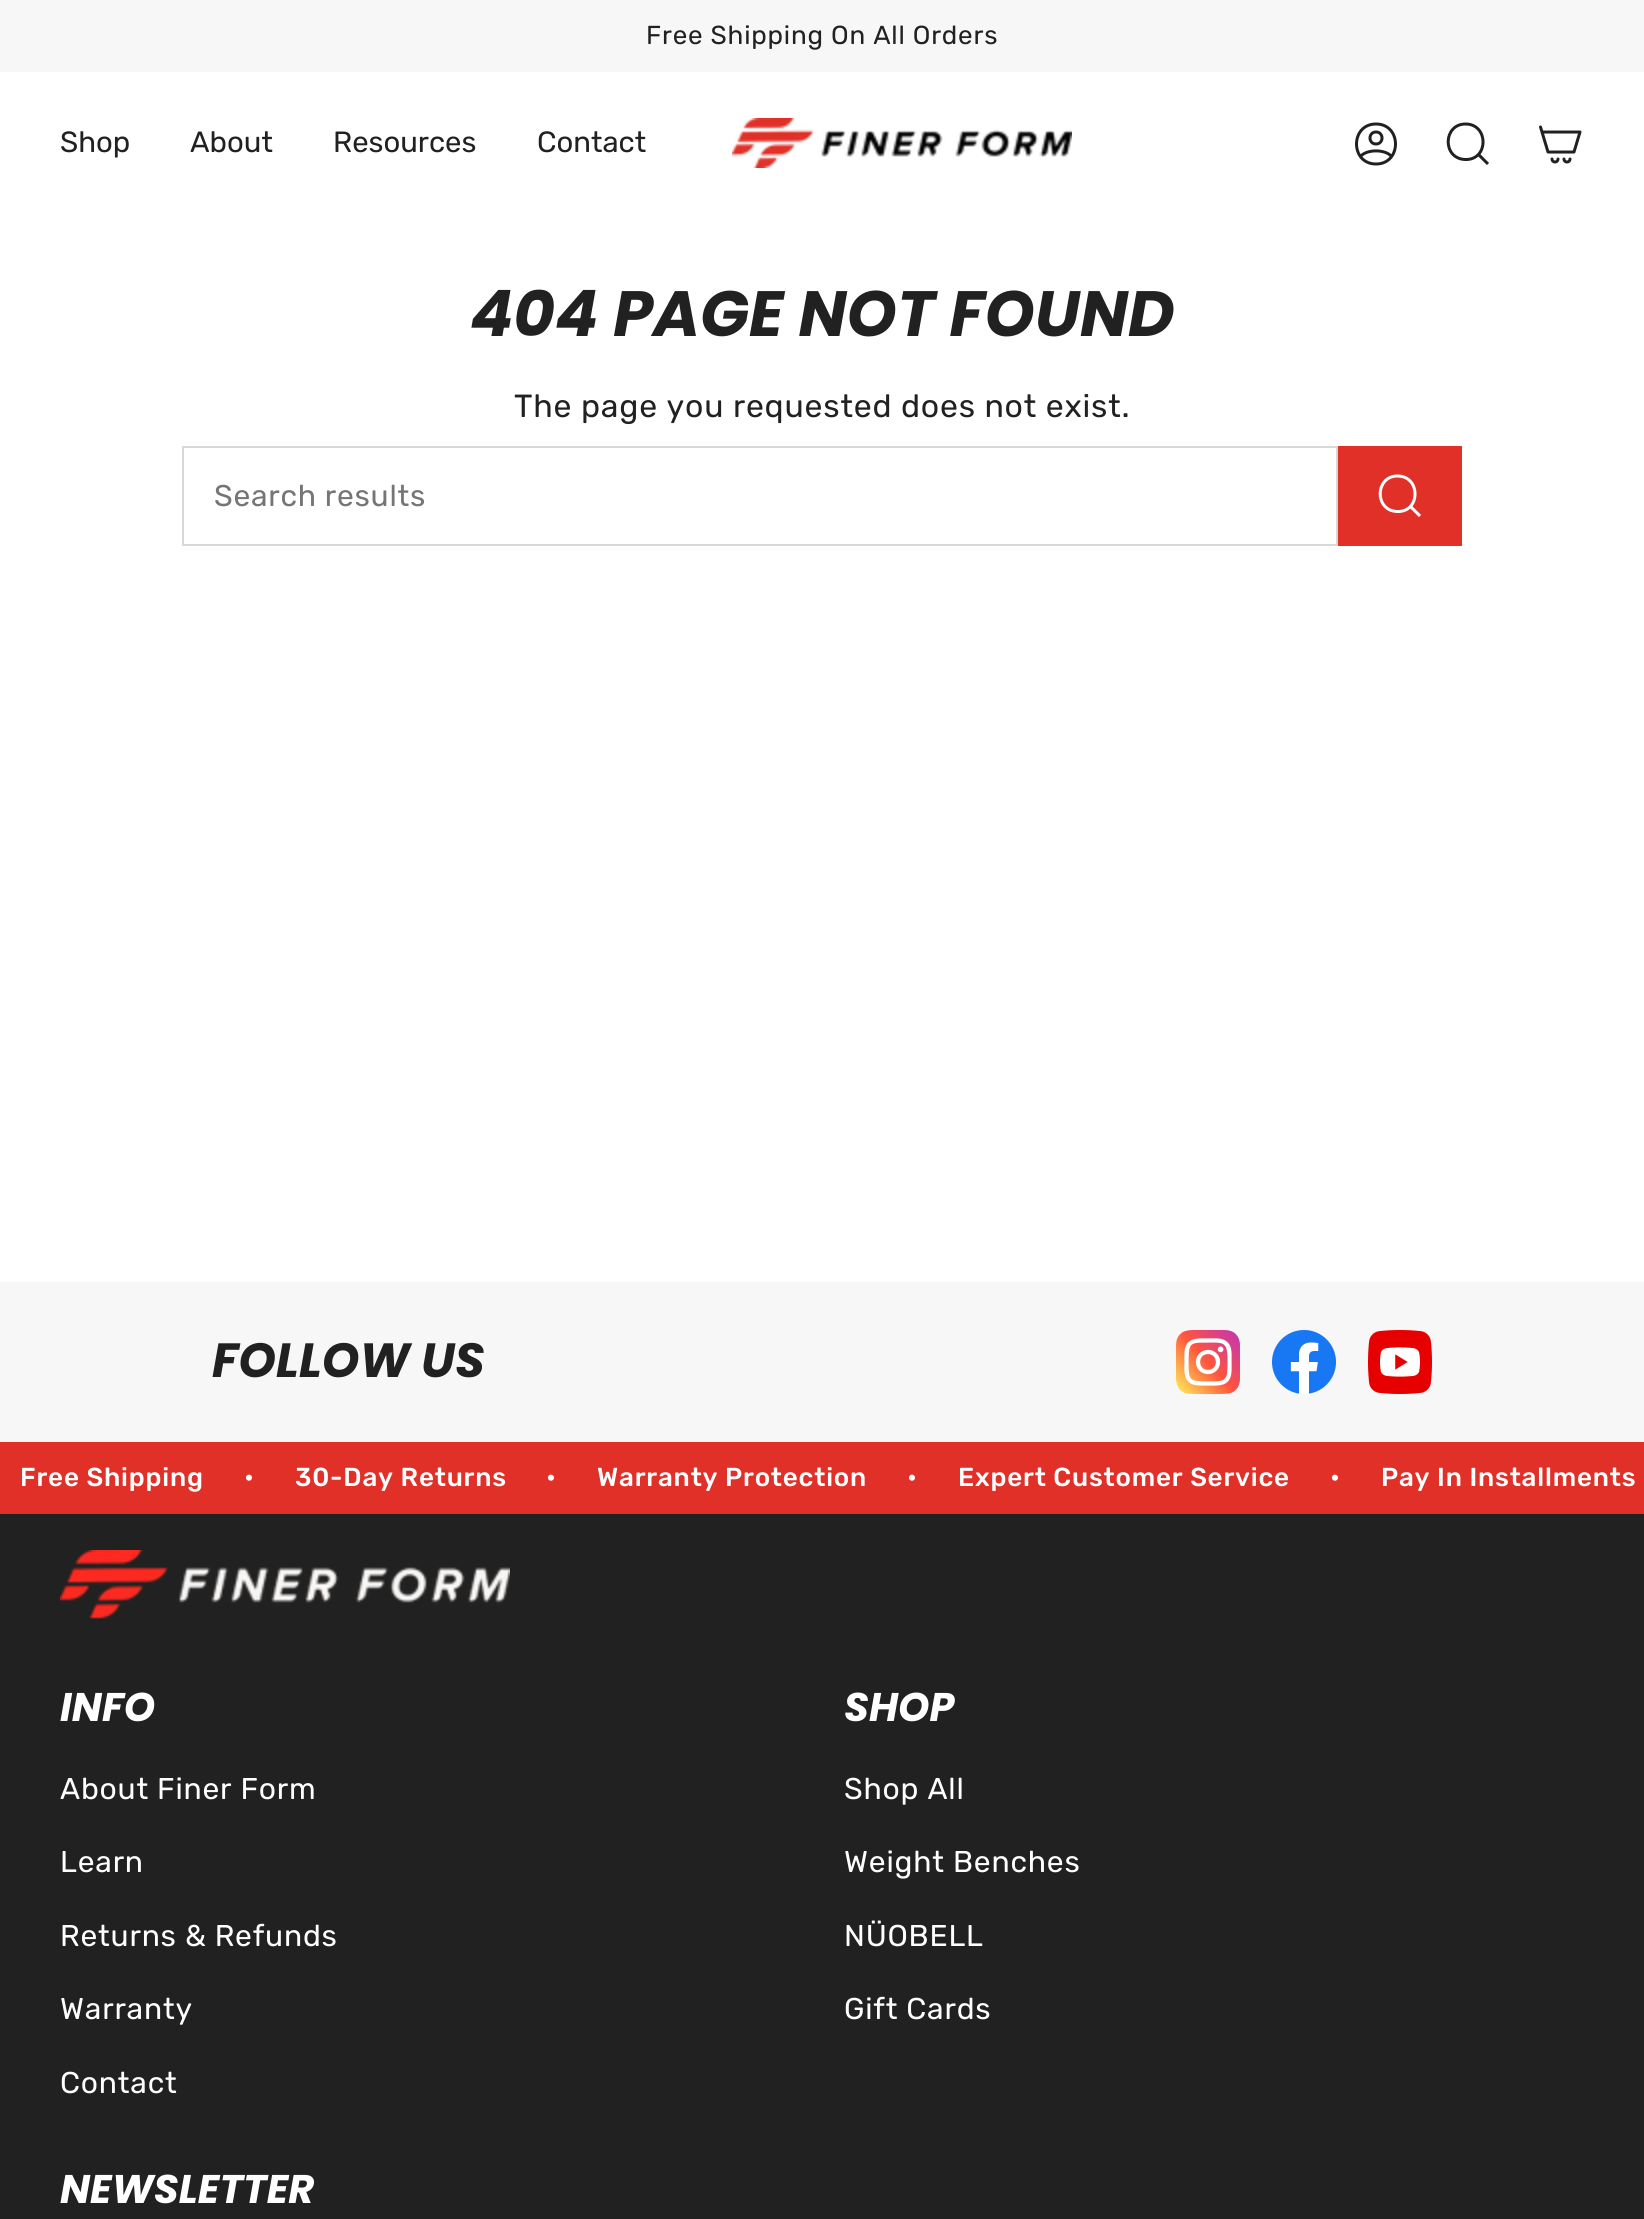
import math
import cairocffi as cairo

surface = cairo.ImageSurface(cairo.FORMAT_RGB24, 1644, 2219)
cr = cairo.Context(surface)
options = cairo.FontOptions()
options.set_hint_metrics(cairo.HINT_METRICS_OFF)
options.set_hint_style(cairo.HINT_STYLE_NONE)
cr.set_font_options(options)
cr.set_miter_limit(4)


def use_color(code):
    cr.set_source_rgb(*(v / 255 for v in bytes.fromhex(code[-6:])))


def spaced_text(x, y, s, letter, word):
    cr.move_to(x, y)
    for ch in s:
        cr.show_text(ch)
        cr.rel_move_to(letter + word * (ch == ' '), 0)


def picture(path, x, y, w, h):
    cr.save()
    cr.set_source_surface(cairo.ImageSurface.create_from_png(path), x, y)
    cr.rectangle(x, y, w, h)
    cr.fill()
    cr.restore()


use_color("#ffffff")
cr.paint()
use_color("#f7f7f7")
cr.rectangle(0, 0, 1644, 72)
cr.fill()
cr.select_font_face("Rubik")
cr.set_font_size(26)
use_color("#212121")
spaced_text(646, 44, "Free Shipping On All Orders", 0.8, 0)
cr.set_font_size(29.25)
cr.move_to(60, 152)
cr.show_text("Shop")
cr.move_to(190, 152)
cr.show_text("About")
cr.move_to(333, 152)
cr.show_text("Resources")
cr.move_to(537, 152)
cr.show_text("Contact")
picture("img1.png", 732, 118, 340, 50)
cr.new_path()
cr.move_to(1376, 124)
cr.curve_to(1350, 124, 1350, 164, 1376, 164)
cr.curve_to(1402, 164, 1402, 124, 1376, 124)
cr.close_path()
cr.move_to(1360.5, 156.5)
cr.curve_to(1366.5, 149, 1385.5, 149, 1391.5, 156.5)
cr.move_to(1376, 144)
cr.curve_to(1384, 144, 1384, 132, 1376, 132)
cr.curve_to(1368, 132, 1368, 144, 1376, 144)
cr.close_path()
cr.set_line_width(3)
cr.set_line_cap(cairo.LINE_CAP_ROUND)
cr.set_line_join(cairo.LINE_JOIN_ROUND)
cr.stroke()
cr.new_path()
cr.move_to(1465.5, 124)
cr.curve_to(1489, 124, 1489, 160.5, 1465, 159.5)
cr.curve_to(1442, 158.5, 1443, 124, 1465.5, 124)
cr.close_path()
cr.move_to(1478, 154)
cr.line_to(1488, 164)
cr.set_line_cap(cairo.LINE_CAP_BUTT)
cr.set_line_join(cairo.LINE_JOIN_MITER)
cr.stroke()
cr.new_path()
cr.move_to(1542, 132)
cr.line_to(1580, 132)
cr.line_to(1574, 152)
cr.line_to(1548, 152)
cr.close_path()
cr.move_to(1542, 132)
cr.line_to(1540.5, 127)
cr.move_to(1558, 159)
cr.curve_to(1558, 163, 1552, 163, 1552, 159)
cr.move_to(1570, 159)
cr.curve_to(1570, 163, 1564, 163, 1564, 159)
cr.set_line_cap(cairo.LINE_CAP_ROUND)
cr.set_line_join(cairo.LINE_JOIN_ROUND)
cr.stroke()
cr.select_font_face("Poppins", cairo.FONT_SLANT_ITALIC, cairo.FONT_WEIGHT_BOLD)
cr.set_font_size(64)
cr.move_to(470, 336)
cr.show_text("404 PAGE NOT FOUND")
cr.select_font_face("Rubik")
cr.set_font_size(32)
spaced_text(514, 417, "The page you requested does not exist.", 0.8, 0)
cr.rectangle(183, 447, 1154, 98)
use_color("#d8d8d8")
cr.set_line_width(2)
cr.set_line_cap(cairo.LINE_CAP_BUTT)
cr.set_line_join(cairo.LINE_JOIN_MITER)
cr.stroke()
cr.set_font_size(30)
use_color("#757575")
spaced_text(214, 506, "Search results", 0.75, 0)
use_color("#e13028")
cr.rectangle(1338, 446, 124, 100)
cr.fill()
cr.new_path()
cr.move_to(1397.5, 476)
cr.curve_to(1421, 476, 1421, 512.5, 1397, 511.5)
cr.curve_to(1374, 510.5, 1375, 476, 1397.5, 476)
cr.close_path()
cr.move_to(1410, 506)
cr.line_to(1420, 516)
use_color("#ffffff")
cr.set_line_width(3)
cr.stroke()
use_color("#f7f7f7")
cr.rectangle(0, 1282, 1644, 160)
cr.fill()
cr.select_font_face("Poppins", cairo.FONT_SLANT_ITALIC, cairo.FONT_WEIGHT_BOLD)
cr.set_font_size(48)
use_color("#212121")
cr.move_to(212, 1377)
cr.show_text("FOLLOW US")
picture("img2.png", 1176, 1330, 64, 64)
picture("img3.png", 1272, 1330, 64, 64)
picture("img4.png", 1368, 1330, 64, 64)
use_color("#e13028")
cr.rectangle(0, 1442, 1644, 72)
cr.fill()
cr.select_font_face("Rubik Medium")
cr.set_font_size(26)
use_color("#ffffff")
spaced_text(20, 1486, "Free Shipping", 0.8, 0)
spaced_text(244, 1486, "•", 0.8, 0)
spaced_text(295, 1486, "30-Day Returns", 0.8, 0)
spaced_text(546, 1486, "•", 0.8, 0)
spaced_text(597, 1486, "Warranty Protection", 0.8, 0)
spaced_text(907, 1486, "•", 0.8, 0)
spaced_text(958, 1486, "Expert Customer Service", 0.8, 0)
spaced_text(1330, 1486, "•", 0.8, 0)
spaced_text(1381, 1486, "Pay In Installments", 0.8, 0)
use_color("#212121")
cr.rectangle(0, 1514, 1644, 705)
cr.fill()
picture("img5.png", 60, 1550, 450, 69)
cr.select_font_face("Poppins", cairo.FONT_SLANT_ITALIC, cairo.FONT_WEIGHT_BOLD)
cr.set_font_size(40)
use_color("#ffffff")
cr.move_to(60, 1721)
cr.show_text("INFO")
cr.select_font_face("Rubik")
cr.set_font_size(30)
spaced_text(60, 1799, "About Finer Form", 0.8, 0)
spaced_text(60, 1872, "Learn", 0.8, 0)
spaced_text(60, 1946, "Returns & Refunds", 0.8, 0)
spaced_text(60, 2019, "Warranty", 0.8, 0)
spaced_text(60, 2093, "Contact", 0.8, 0)
cr.select_font_face("Poppins", cairo.FONT_SLANT_ITALIC, cairo.FONT_WEIGHT_BOLD)
cr.set_font_size(40)
cr.move_to(844, 1721)
cr.show_text("SHOP")
cr.select_font_face("Rubik")
cr.set_font_size(30)
spaced_text(844, 1799, "Shop All", 0.8, 0)
spaced_text(844, 1872, "Weight Benches", 0.8, 0)
spaced_text(844, 1946, "NÜOBELL", 0.8, 0)
spaced_text(844, 2019, "Gift Cards", 0.8, 0)
cr.select_font_face("Poppins", cairo.FONT_SLANT_ITALIC, cairo.FONT_WEIGHT_BOLD)
cr.set_font_size(40)
cr.move_to(60, 2203)
cr.show_text("NEWSLETTER")
surface.write_to_png("result.png")
